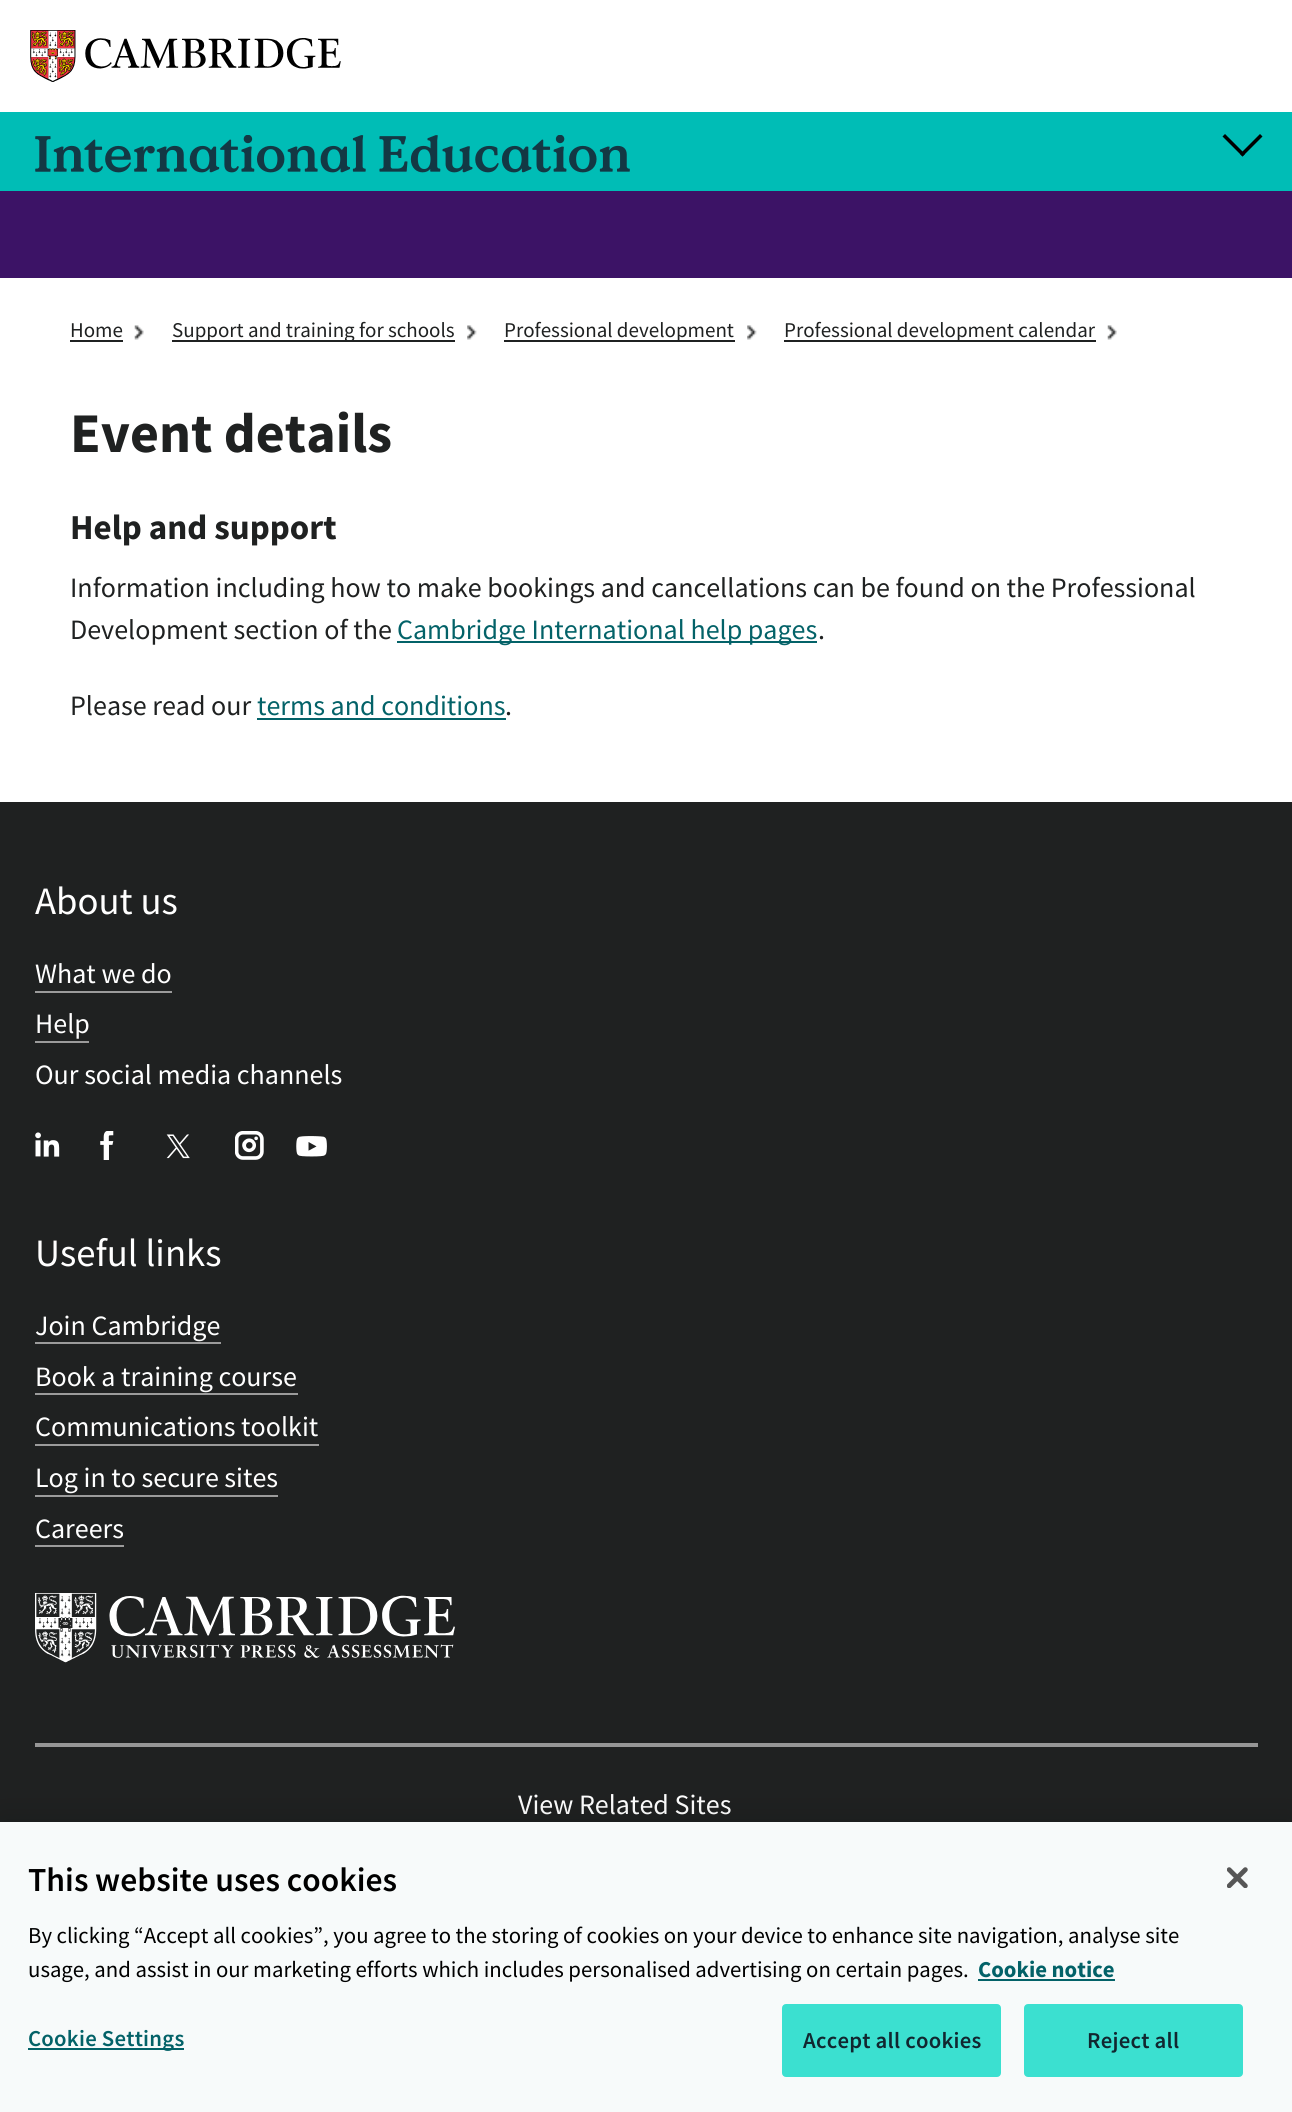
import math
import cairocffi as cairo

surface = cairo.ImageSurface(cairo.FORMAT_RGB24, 1292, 2112)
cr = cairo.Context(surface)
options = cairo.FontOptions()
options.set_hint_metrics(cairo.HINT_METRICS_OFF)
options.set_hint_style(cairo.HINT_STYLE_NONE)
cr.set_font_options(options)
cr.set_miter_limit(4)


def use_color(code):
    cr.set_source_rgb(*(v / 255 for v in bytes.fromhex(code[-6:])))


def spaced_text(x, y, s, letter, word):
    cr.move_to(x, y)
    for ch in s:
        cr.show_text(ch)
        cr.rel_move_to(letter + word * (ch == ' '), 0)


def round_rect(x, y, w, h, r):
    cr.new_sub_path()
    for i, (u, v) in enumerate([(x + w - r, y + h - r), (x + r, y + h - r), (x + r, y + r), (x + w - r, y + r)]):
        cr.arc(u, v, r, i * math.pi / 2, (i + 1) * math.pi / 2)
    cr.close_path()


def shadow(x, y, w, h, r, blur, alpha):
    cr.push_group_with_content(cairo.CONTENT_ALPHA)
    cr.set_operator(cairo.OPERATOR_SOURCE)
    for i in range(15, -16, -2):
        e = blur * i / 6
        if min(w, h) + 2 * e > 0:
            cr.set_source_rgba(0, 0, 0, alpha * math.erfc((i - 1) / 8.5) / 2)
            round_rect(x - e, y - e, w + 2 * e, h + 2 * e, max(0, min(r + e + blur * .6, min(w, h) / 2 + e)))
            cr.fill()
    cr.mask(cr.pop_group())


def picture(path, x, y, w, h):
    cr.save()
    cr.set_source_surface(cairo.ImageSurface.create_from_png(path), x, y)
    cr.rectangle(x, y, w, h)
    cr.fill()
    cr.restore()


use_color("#ffffff")
cr.paint()
picture("img1.png", 30, 30, 311, 52)
use_color("#00bdb6")
cr.rectangle(0, 112, 1292, 79)
cr.fill()
picture("img2.png", 35, 135, 595, 38)
use_color("#000000")
cr.new_path()
cr.move_to(1260, 134)
cr.line_to(1262.5, 136.5)
cr.line_to(1242.5, 156.5)
cr.line_to(1240, 154)
cr.close_path()
cr.fill()
cr.new_path()
cr.move_to(1225, 134)
cr.line_to(1245, 154)
cr.line_to(1242.5, 156.5)
cr.line_to(1222.5, 136.5)
cr.close_path()
cr.fill()
use_color("#3c1366")
cr.rectangle(0, 191, 1292, 87)
cr.fill()
cr.select_font_face("Source Sans Pro")
cr.set_font_size(21)
use_color("#1f2121")
cr.move_to(70, 337)
cr.show_text("Home")
cr.rectangle(70, 340, 53, 2)
cr.fill()
picture("img3.png", 134, 325, 10, 15)
cr.rectangle(172, 340, 283, 2)
cr.fill()
cr.move_to(172, 337)
cr.show_text("Support and training for schools")
picture("img4.png", 467, 325, 10, 15)
cr.rectangle(504, 340, 231, 2)
cr.fill()
cr.move_to(504, 337)
cr.show_text("Professional development")
picture("img5.png", 747, 325, 10, 15)
cr.rectangle(784, 340, 312, 2)
cr.fill()
cr.move_to(784, 337)
cr.show_text("Professional development calendar")
picture("img6.png", 1107, 325, 10, 15)
cr.select_font_face("Source Sans Pro", cairo.FONT_SLANT_NORMAL, cairo.FONT_WEIGHT_BOLD)
cr.set_font_size(56)
cr.move_to(70, 452)
cr.show_text("Event details")
cr.set_font_size(35)
cr.move_to(70, 539)
cr.show_text("Help and support")
cr.select_font_face("Source Sans Pro")
cr.set_font_size(28)
cr.move_to(70, 597)
cr.show_text("Information including how to make bookings and cancellations can be found on the Professional")
cr.move_to(70, 639)
cr.show_text("Development section of the")
use_color("#036268")
cr.rectangle(397, 641, 420, 2)
cr.fill()
cr.move_to(397, 639)
cr.show_text("Cambridge International help pages")
use_color("#1f2121")
cr.move_to(818, 639)
cr.show_text(".")
cr.move_to(70, 715)
cr.show_text("Please read our")
use_color("#036268")
cr.move_to(257, 715)
cr.show_text("terms and conditions")
cr.rectangle(257, 718, 249, 2)
cr.fill()
use_color("#1f2121")
cr.move_to(505, 715)
cr.show_text(".")
cr.rectangle(0, 802, 1292, 1020)
cr.fill()
cr.set_font_size(38.75)
use_color("#ffffff")
cr.move_to(35, 914)
cr.show_text("About us")
cr.set_font_size(28)
cr.move_to(35, 983)
cr.show_text("What we do")
use_color("#9b9b9b")
cr.rectangle(35, 991, 137, 2)
cr.fill()
use_color("#ffffff")
cr.move_to(35, 1033)
cr.show_text("Help")
use_color("#9b9b9b")
cr.rectangle(35, 1041, 54, 2)
cr.fill()
use_color("#ffffff")
cr.move_to(35, 1084)
cr.show_text("Our social media channels")
picture("img7.png", 35, 1132, 25, 25)
picture("img8.png", 100, 1131, 14, 29)
picture("img9.png", 166, 1134, 24, 25)
picture("img10.png", 235, 1131, 29, 29)
picture("img11.png", 296, 1136, 31, 21)
cr.set_font_size(38.75)
cr.move_to(35, 1266)
cr.show_text("Useful links")
cr.set_font_size(28)
cr.move_to(35, 1335)
cr.show_text("Join Cambridge")
use_color("#9b9b9b")
cr.rectangle(35, 1342, 186, 2)
cr.fill()
use_color("#ffffff")
cr.move_to(35, 1386)
cr.show_text("Book a training course")
use_color("#9b9b9b")
cr.rectangle(35, 1393, 263, 2)
cr.fill()
use_color("#ffffff")
cr.move_to(35, 1436)
cr.show_text("Communications toolkit")
use_color("#9b9b9b")
cr.rectangle(35, 1444, 284, 2)
cr.fill()
use_color("#ffffff")
cr.move_to(35, 1487)
cr.show_text("Log in to secure sites")
use_color("#9b9b9b")
cr.rectangle(35, 1495, 243, 2)
cr.fill()
use_color("#ffffff")
cr.move_to(35, 1538)
cr.show_text("Careers")
use_color("#9b9b9b")
cr.rectangle(35, 1545, 89, 2)
cr.fill()
picture("img12.png", 35, 1593, 420, 70)
use_color("#969696")
cr.rectangle(35, 1743, 1223, 4)
cr.fill()
use_color("#ffffff")
cr.move_to(518, 1814)
cr.show_text("View Related Sites")
use_color("#000000")
shadow(0, 1822, 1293, 290, 0, 16, 0.2)
use_color("#f7fafa")
cr.rectangle(0, 1822, 1292, 290)
cr.fill()
cr.select_font_face("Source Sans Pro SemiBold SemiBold")
cr.set_font_size(33.6)
use_color("#000000")
cr.move_to(28, 1891)
cr.show_text("This website uses cookies")
cr.select_font_face("Source Sans Pro")
cr.set_font_size(22.75)
cr.move_to(28, 1943)
cr.show_text("By clicking “Accept all cookies”, you agree to the storing of cookies on your device to enhance site navigation, analyse site")
cr.move_to(28, 1977)
cr.show_text("usage, and assist in our marketing efforts which includes personalised advertising on certain pages.")
cr.select_font_face("Source Sans Pro", cairo.FONT_SLANT_NORMAL, cairo.FONT_WEIGHT_BOLD)
use_color("#036268")
cr.move_to(978, 1977)
cr.show_text("Cookie notice")
cr.rectangle(978, 1979, 137, 2)
cr.fill()
cr.rectangle(28, 2048, 156, 2)
cr.fill()
cr.select_font_face("Source Sans Pro SemiBold SemiBold")
spaced_text(28, 2046, "Cookie Settings", 0.25, 0)
use_color("#3be0d0")
round_rect(783, 2005, 217, 71, 3)
cr.fill_preserve()
cr.stroke()
use_color("#112730")
spaced_text(803, 2048, "Accept all cookies", 0.25, 0)
use_color("#3be0d0")
round_rect(1025, 2005, 217, 71, 3)
cr.fill_preserve()
cr.stroke()
use_color("#112730")
spaced_text(1087, 2048, "Reject all", 0.25, 0)
picture("img13.png", 1227, 1867, 21, 21)
surface.write_to_png("result.png")
